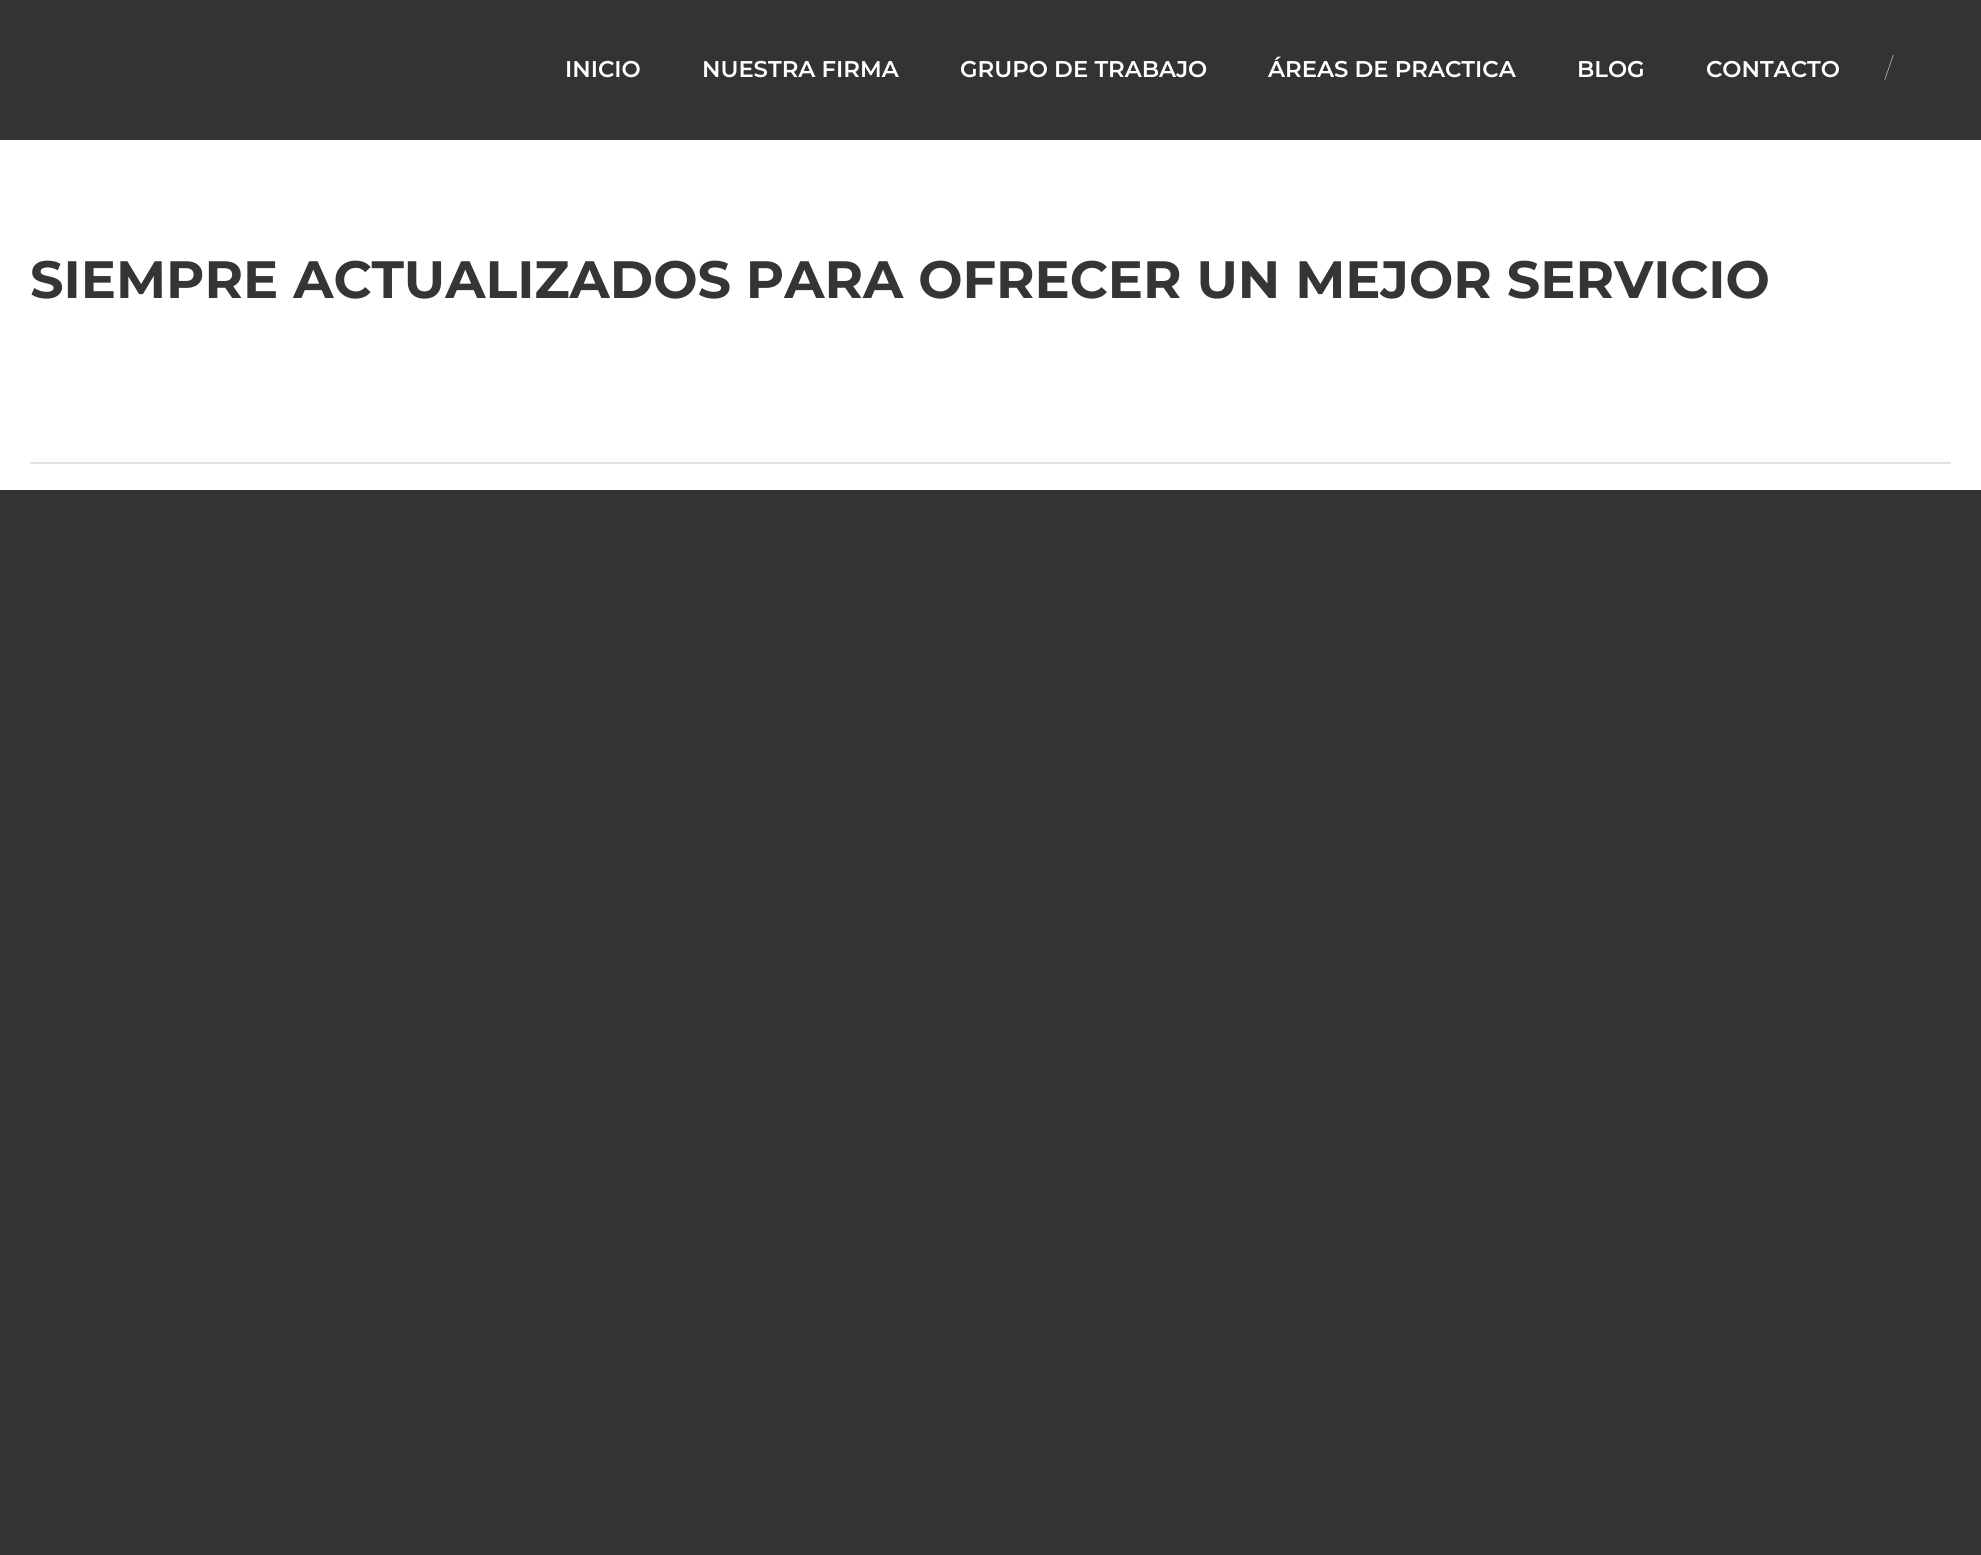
import math
import cairocffi as cairo

surface = cairo.ImageSurface(cairo.FORMAT_RGB24, 1981, 1555)
cr = cairo.Context(surface)
options = cairo.FontOptions()
options.set_hint_metrics(cairo.HINT_METRICS_OFF)
options.set_hint_style(cairo.HINT_STYLE_NONE)
cr.set_font_options(options)
cr.set_miter_limit(4)


def use_color(code):
    cr.set_source_rgb(*(v / 255 for v in bytes.fromhex(code[-6:])))


use_color("#ffffff")
cr.paint()
use_color("#333333")
cr.rectangle(0, 0, 1981, 140)
cr.fill()
cr.select_font_face("Montserrat SemiBold")
cr.set_font_size(22.75)
use_color("#ffffff")
cr.move_to(565, 77)
cr.show_text("INICIO")
cr.move_to(702, 77)
cr.show_text("NUESTRA FIRMA")
cr.move_to(960, 77)
cr.show_text("GRUPO DE TRABAJO")
cr.move_to(1268, 77)
cr.show_text("ÁREAS DE PRACTICA")
cr.move_to(1577, 77)
cr.show_text("BLOG")
cr.move_to(1706, 77)
cr.show_text("CONTACTO")
cr.select_font_face("Montserrat Thin")
cr.set_font_size(26)
cr.move_to(1885, 77)
cr.show_text("/")
use_color("#e1e1e1")
cr.rectangle(30, 462, 1921, 2)
cr.fill()
cr.select_font_face("Montserrat", cairo.FONT_SLANT_NORMAL, cairo.FONT_WEIGHT_BOLD)
cr.set_font_size(52.5)
use_color("#353535")
cr.move_to(30, 298)
cr.show_text("SIEMPRE ACTUALIZADOS PARA OFRECER UN MEJOR SERVICIO")
use_color("#333333")
cr.rectangle(0, 490, 1981, 1065)
cr.fill()
surface.write_to_png("result.png")
